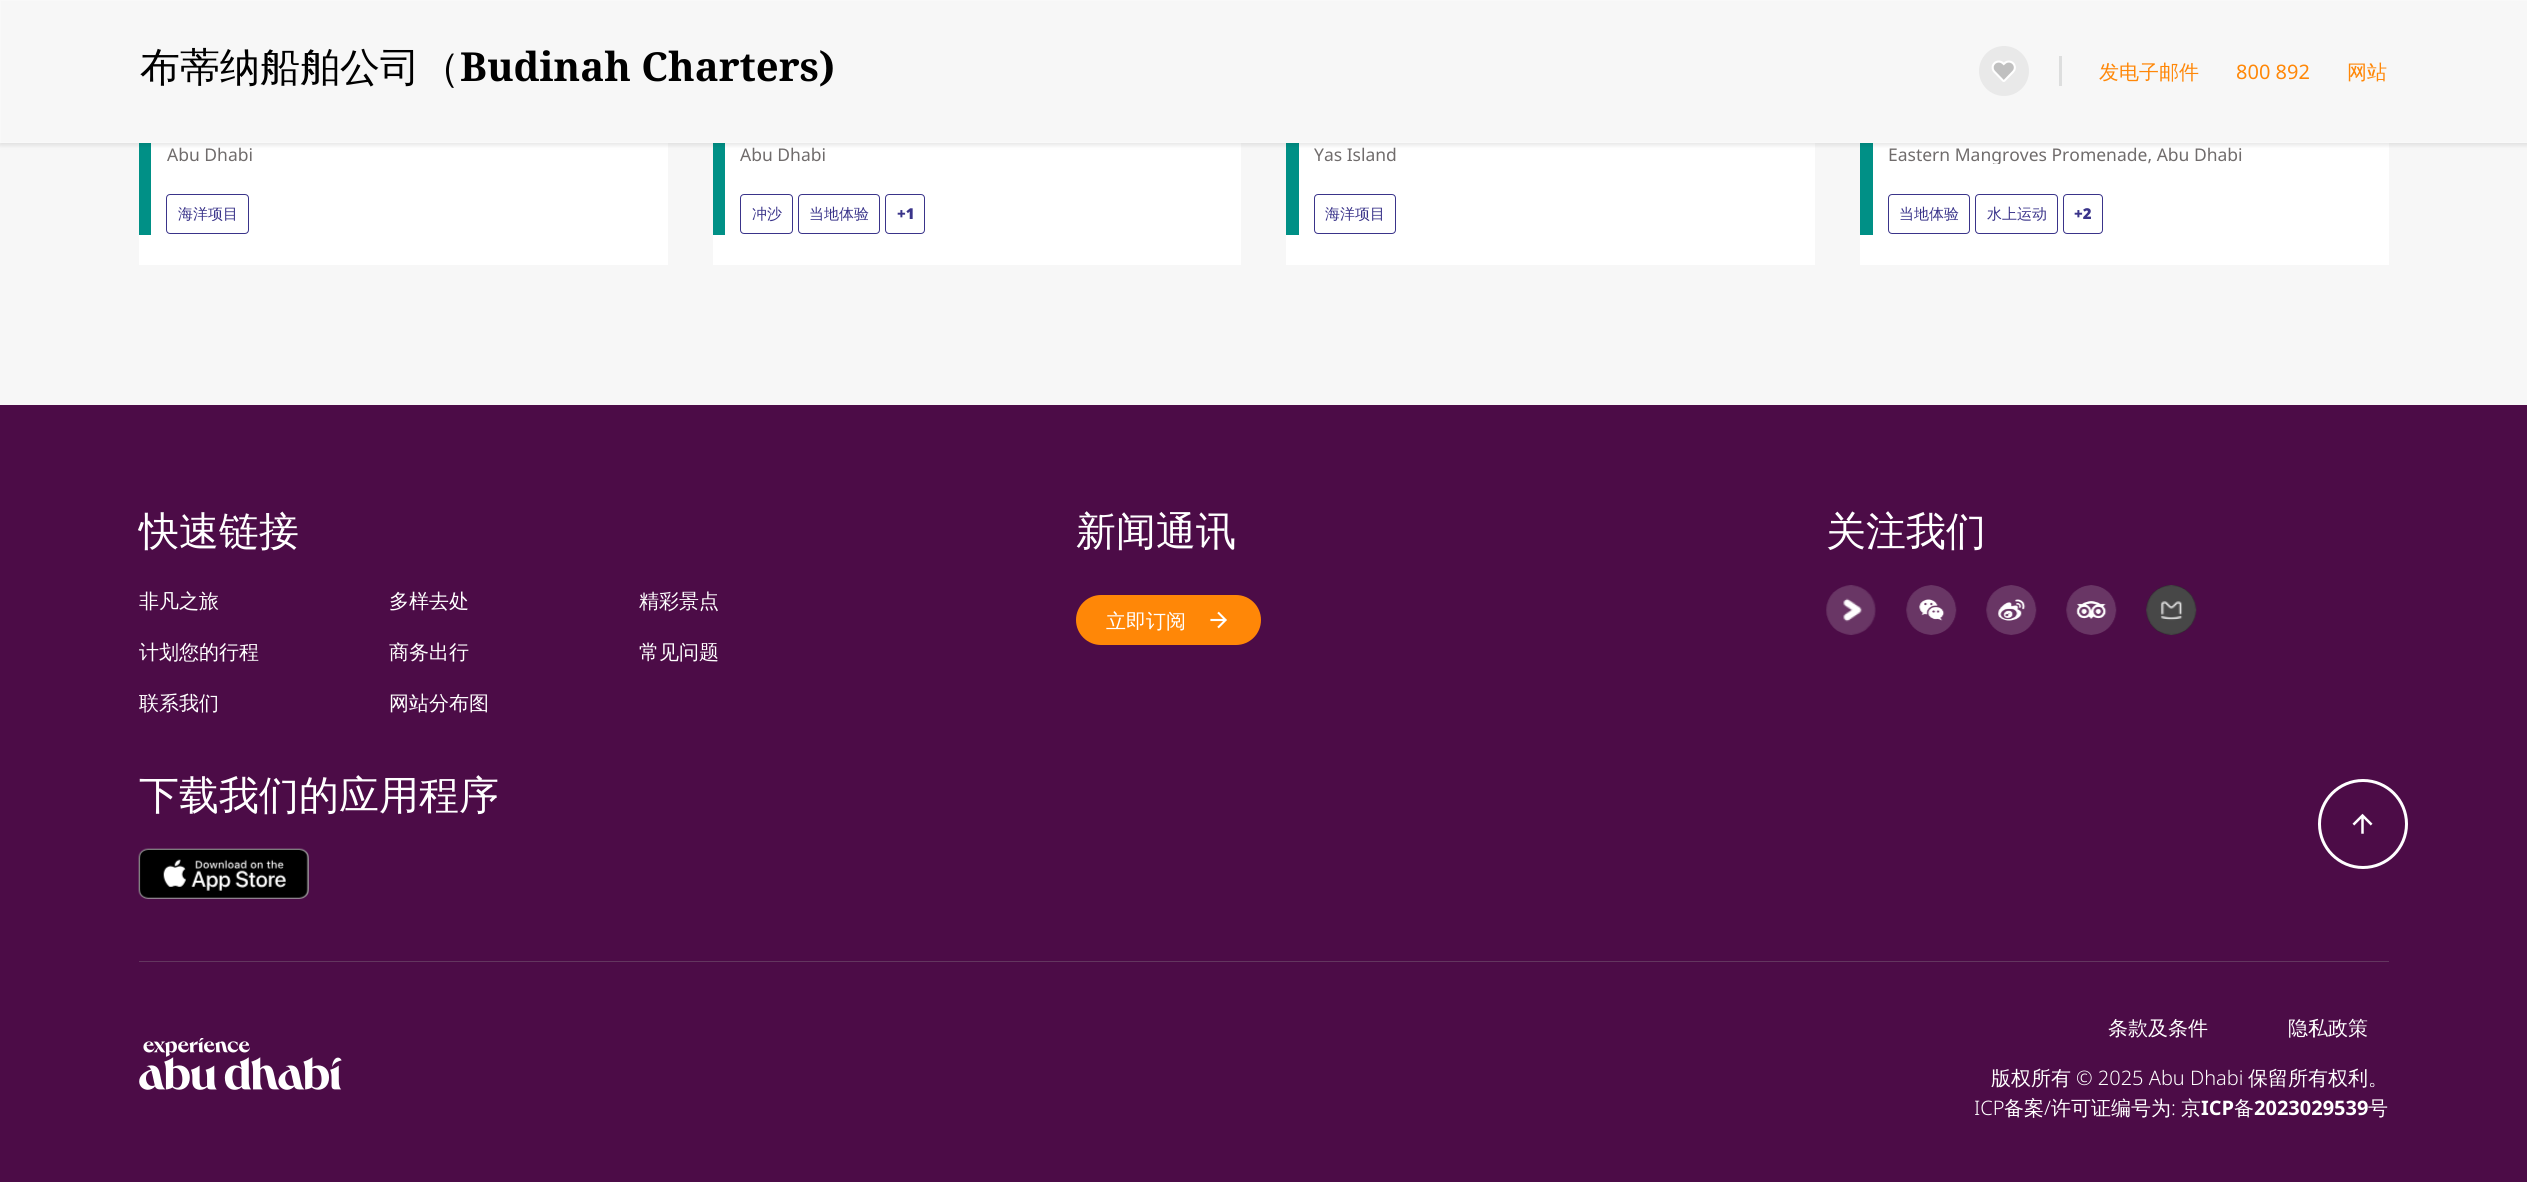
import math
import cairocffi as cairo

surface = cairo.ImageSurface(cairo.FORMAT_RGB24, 2527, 1182)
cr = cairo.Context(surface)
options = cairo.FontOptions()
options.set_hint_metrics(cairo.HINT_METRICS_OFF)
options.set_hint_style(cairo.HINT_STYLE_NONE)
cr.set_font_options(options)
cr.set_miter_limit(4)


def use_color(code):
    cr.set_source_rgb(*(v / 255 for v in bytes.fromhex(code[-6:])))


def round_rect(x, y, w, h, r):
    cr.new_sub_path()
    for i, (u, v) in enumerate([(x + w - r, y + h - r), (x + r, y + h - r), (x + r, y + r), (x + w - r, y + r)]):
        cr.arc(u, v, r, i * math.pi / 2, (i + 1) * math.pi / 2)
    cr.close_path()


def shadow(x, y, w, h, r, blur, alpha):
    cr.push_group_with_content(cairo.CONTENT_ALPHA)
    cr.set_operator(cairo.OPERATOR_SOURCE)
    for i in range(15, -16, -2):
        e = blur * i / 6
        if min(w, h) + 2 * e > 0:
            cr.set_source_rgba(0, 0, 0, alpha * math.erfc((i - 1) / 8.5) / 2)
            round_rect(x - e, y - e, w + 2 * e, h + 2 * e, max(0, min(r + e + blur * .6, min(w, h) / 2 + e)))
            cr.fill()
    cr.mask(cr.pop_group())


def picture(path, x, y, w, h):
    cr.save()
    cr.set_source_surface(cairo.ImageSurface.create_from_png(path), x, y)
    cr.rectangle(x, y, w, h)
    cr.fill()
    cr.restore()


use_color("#4c0c47")
cr.paint()
use_color("#f7f7f7")
cr.rectangle(0, 143, 2527, 262)
cr.fill()
use_color("#ffffff")
cr.rectangle(139, 143, 529, 122)
cr.fill()
use_color("#009086")
cr.rectangle(139, 143, 12, 92)
cr.fill()
use_color("#ffffff")
cr.rectangle(713, 143, 528, 122)
cr.fill()
use_color("#009086")
cr.rectangle(713, 143, 12, 92)
cr.fill()
use_color("#ffffff")
cr.rectangle(1286, 143, 529, 122)
cr.fill()
use_color("#009086")
cr.rectangle(1286, 143, 13, 92)
cr.fill()
use_color("#ffffff")
cr.rectangle(1860, 143, 529, 122)
cr.fill()
use_color("#009086")
cr.rectangle(1860, 143, 13, 92)
cr.fill()
use_color("#000000")
shadow(0, 3, 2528, 142, 0, 2.5, 0.11)
use_color("#f7f7f7")
cr.rectangle(0.5, 0.5, 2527, 142)
cr.fill_preserve()
use_color("#f9f9f9")
cr.set_line_width(1)
cr.stroke()
cr.select_font_face("WenQuanYi Zen Hei Medium")
cr.set_font_size(40)
use_color("#000000")
cr.move_to(140, 81)
cr.show_text("布蒂纳船舶公司（")
cr.select_font_face("Noto Serif", cairo.FONT_SLANT_NORMAL, cairo.FONT_WEIGHT_BOLD)
cr.move_to(460, 81)
cr.show_text("Budinah Charters)")
use_color("#e9e9e9")
cr.new_path()
cr.arc(2004, 71, 25, 0, 2 * math.pi)
cr.fill()
picture("img1.png", 1991, 60, 25, 22)
use_color("#dddede")
cr.rectangle(2059, 56, 3, 30)
cr.fill()
cr.select_font_face("WenQuanYi Zen Hei Medium")
cr.set_font_size(20)
use_color("#ff8707")
cr.move_to(2099, 79)
cr.show_text("发电子邮件")
cr.select_font_face("Noto Sans")
cr.move_to(2236, 79)
cr.show_text("800 892")
cr.select_font_face("WenQuanYi Zen Hei Medium")
cr.move_to(2347, 79)
cr.show_text("网站")
cr.select_font_face("Noto Sans")
cr.set_font_size(17.5)
use_color("#706c6c")
cr.move_to(167, 161)
cr.show_text("Abu Dhabi")
round_rect(166.5, 194.5, 82, 39, 3.5)
use_color("#3a348a")
cr.stroke()
cr.select_font_face("WenQuanYi Zen Hei Medium")
cr.set_font_size(15)
cr.move_to(178, 219)
cr.show_text("海洋项目")
cr.select_font_face("Noto Sans")
cr.set_font_size(17.5)
use_color("#706c6c")
cr.move_to(740, 161)
cr.show_text("Abu Dhabi")
round_rect(740.5, 194.5, 52, 39, 3.5)
use_color("#3a348a")
cr.stroke()
cr.select_font_face("WenQuanYi Zen Hei Medium")
cr.set_font_size(15)
cr.move_to(752, 219)
cr.show_text("冲沙")
round_rect(798.5, 194.5, 81, 39, 3.5)
cr.stroke()
cr.move_to(809, 219)
cr.show_text("当地体验")
round_rect(885.5, 194.5, 39, 39, 3.5)
cr.stroke()
cr.select_font_face("Noto Sans Black")
cr.move_to(897, 219)
cr.show_text("+1")
cr.select_font_face("Noto Sans")
cr.set_font_size(17.5)
use_color("#706c6c")
cr.move_to(1314, 161)
cr.show_text("Yas Island")
round_rect(1314.5, 194.5, 81, 39, 3.5)
use_color("#3a348a")
cr.stroke()
cr.select_font_face("WenQuanYi Zen Hei Medium")
cr.set_font_size(15)
cr.move_to(1325, 219)
cr.show_text("海洋项目")
cr.save()
cr.rectangle(1888, 144, 355, 20)
cr.clip()
cr.select_font_face("Noto Sans")
cr.set_font_size(17.5)
use_color("#706c6c")
cr.move_to(1888, 161)
cr.show_text("Eastern Mangroves Promenade, Abu Dhabi")
cr.restore()
round_rect(1888.5, 194.5, 81, 39, 3.5)
cr.stroke()
cr.move_to(1899, 219)
cr.show_text("当地体验")
round_rect(1975.5, 194.5, 82, 39, 3.5)
cr.stroke()
cr.move_to(1987, 219)
cr.show_text("水上运动")
round_rect(2063.5, 194.5, 39, 39, 3.5)
cr.stroke()
cr.select_font_face("Noto Sans Black")
cr.move_to(2074, 219)
cr.show_text("+2")
cr.select_font_face("WenQuanYi Zen Hei Medium")
cr.set_font_size(40)
use_color("#ffffff")
cr.move_to(139, 545)
cr.show_text("快速链接")
cr.set_font_size(20)
cr.move_to(139, 608)
cr.show_text("非凡之旅")
cr.move_to(139, 659)
cr.show_text("计划您的行程")
cr.move_to(139, 710)
cr.show_text("联系我们")
cr.move_to(389, 608)
cr.show_text("多样去处")
cr.move_to(389, 659)
cr.show_text("商务出行")
cr.move_to(389, 710)
cr.show_text("网站分布图")
cr.move_to(639, 608)
cr.show_text("精彩景点")
cr.move_to(639, 659)
cr.show_text("常见问题")
cr.set_font_size(40)
cr.move_to(1076, 545)
cr.show_text("新闻通讯")
use_color("#ff8707")
round_rect(1076, 595, 185, 50, 25)
cr.fill()
cr.set_font_size(20)
use_color("#ffffff")
cr.move_to(1106, 628)
cr.show_text("立即订阅")
picture("img2.png", 1210, 611, 17, 18)
cr.set_font_size(40)
cr.move_to(1826, 545)
cr.show_text("关注我们")
picture("img3.png", 1826, 585, 50, 50)
picture("img4.png", 1906, 585, 51, 50)
picture("img5.png", 1986, 585, 51, 50)
picture("img6.png", 2066, 585, 51, 50)
picture("img7.png", 2146, 585, 51, 50)
cr.move_to(139, 809)
cr.show_text("下载我们的应用程序")
picture("img8.png", 138, 848, 171, 51)
cr.arc(2363, 824, 43.5, 0, 2 * math.pi)
cr.set_line_width(3)
cr.stroke()
picture("img9.png", 2352, 813, 21, 21)
use_color("#63365f")
cr.rectangle(139, 961, 2250, 1)
cr.fill()
picture("img10.png", 139, 1038, 203, 52)
cr.set_font_size(20)
use_color("#ffffff")
cr.move_to(2108, 1035)
cr.show_text("条款及条件")
cr.move_to(2288, 1035)
cr.show_text("隐私政策")
cr.move_to(1991, 1085)
cr.show_text("版权所有")
cr.select_font_face("Noto Sans Light")
cr.move_to(2076, 1085)
cr.show_text("© 2025 Abu Dhabi")
cr.select_font_face("WenQuanYi Zen Hei Medium")
cr.move_to(2248, 1085)
cr.show_text("保留所有权利。")
cr.select_font_face("Noto Sans Light")
cr.move_to(1974, 1115)
cr.show_text("ICP")
cr.select_font_face("WenQuanYi Zen Hei Medium")
cr.move_to(2004, 1115)
cr.show_text("备案")
cr.select_font_face("Noto Sans Light")
cr.move_to(2044, 1115)
cr.show_text("/")
cr.select_font_face("WenQuanYi Zen Hei Medium")
cr.move_to(2051, 1115)
cr.show_text("许可证编号为")
cr.select_font_face("Noto Sans Light")
cr.move_to(2171, 1115)
cr.show_text(":")
cr.select_font_face("WenQuanYi Zen Hei Medium")
cr.move_to(2181, 1115)
cr.show_text("京")
cr.select_font_face("Noto Sans", cairo.FONT_SLANT_NORMAL, cairo.FONT_WEIGHT_BOLD)
cr.move_to(2201, 1115)
cr.show_text("ICP")
cr.select_font_face("WenQuanYi Zen Hei Medium")
cr.move_to(2234, 1115)
cr.show_text("备")
cr.select_font_face("Noto Sans", cairo.FONT_SLANT_NORMAL, cairo.FONT_WEIGHT_BOLD)
cr.move_to(2254, 1115)
cr.show_text("2023029539")
cr.select_font_face("WenQuanYi Zen Hei Medium")
cr.move_to(2368, 1115)
cr.show_text("号")
surface.write_to_png("result.png")
